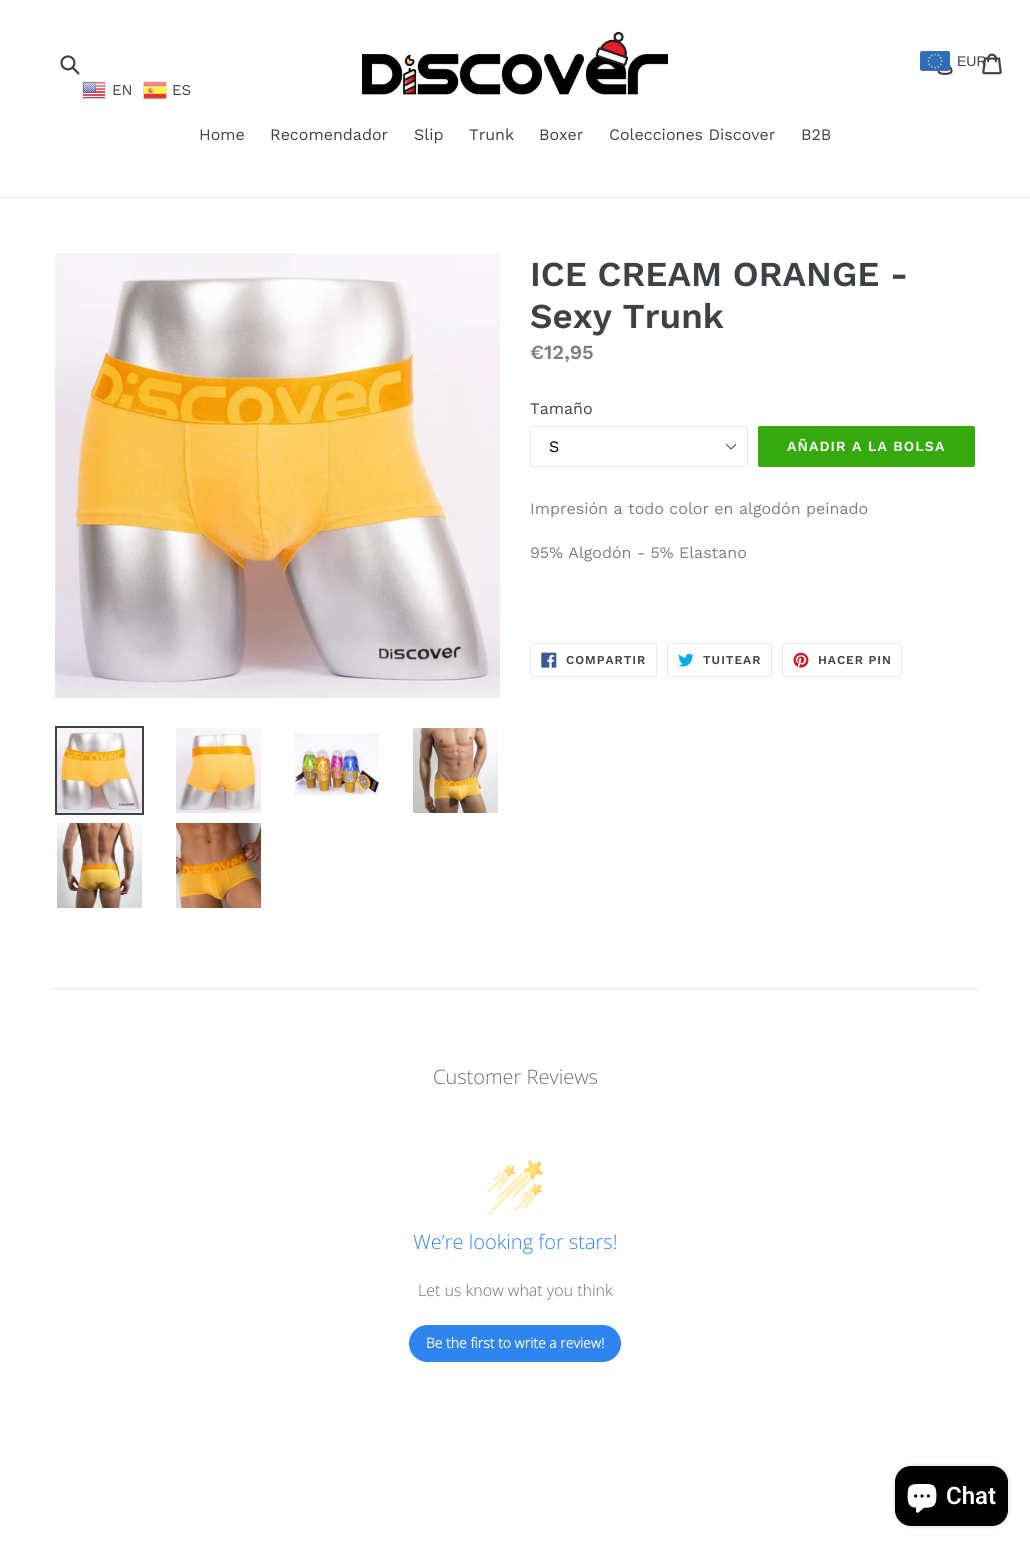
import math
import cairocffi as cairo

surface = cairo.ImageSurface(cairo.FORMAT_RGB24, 1030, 1547)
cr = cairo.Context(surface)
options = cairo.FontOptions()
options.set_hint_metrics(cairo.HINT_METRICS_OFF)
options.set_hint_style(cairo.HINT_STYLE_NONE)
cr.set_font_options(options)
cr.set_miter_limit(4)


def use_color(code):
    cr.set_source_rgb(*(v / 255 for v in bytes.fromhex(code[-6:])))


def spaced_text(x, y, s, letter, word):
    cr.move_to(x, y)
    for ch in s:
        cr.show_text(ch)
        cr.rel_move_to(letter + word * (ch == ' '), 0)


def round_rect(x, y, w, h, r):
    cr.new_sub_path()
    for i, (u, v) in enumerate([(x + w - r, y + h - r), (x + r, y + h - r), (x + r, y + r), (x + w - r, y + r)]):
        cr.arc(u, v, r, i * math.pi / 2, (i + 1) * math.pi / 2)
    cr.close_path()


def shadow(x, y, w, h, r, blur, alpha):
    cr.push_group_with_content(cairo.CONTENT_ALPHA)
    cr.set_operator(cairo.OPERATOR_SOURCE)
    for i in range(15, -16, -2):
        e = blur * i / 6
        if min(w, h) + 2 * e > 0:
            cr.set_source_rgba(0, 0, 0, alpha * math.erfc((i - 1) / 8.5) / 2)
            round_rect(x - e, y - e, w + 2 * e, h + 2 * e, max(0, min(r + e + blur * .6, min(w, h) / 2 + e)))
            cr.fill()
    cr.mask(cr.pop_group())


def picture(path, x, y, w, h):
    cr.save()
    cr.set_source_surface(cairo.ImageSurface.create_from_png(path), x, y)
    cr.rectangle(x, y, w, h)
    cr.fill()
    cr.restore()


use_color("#ffffff")
cr.paint()
picture("img1.png", 82, 81, 24, 19)
cr.select_font_face("Work Sans")
cr.set_font_size(15)
use_color("#3d4246")
cr.move_to(112, 95)
cr.show_text("EN")
picture("img2.png", 143, 81, 24, 19)
cr.move_to(172, 95)
cr.show_text("ES")
picture("img3.png", 60, 55, 20, 20)
picture("img4.png", 362, 30, 306, 66)
picture("img7.png", 937, 65, 16, 10)
picture("img5.png", 920, 51, 30, 20)
picture("img6.png", 982, 53, 20, 22)
cr.select_font_face("Liberation Sans")
cr.set_font_size(14)
use_color("#403f3f")
cr.move_to(957, 66)
cr.show_text("EUR")
use_color("#e8e9eb")
cr.rectangle(0, 197, 1030, 1)
cr.fill()
cr.select_font_face("Work Sans")
cr.set_font_size(16)
use_color("#3d4246")
cr.move_to(199, 140)
cr.show_text("Home")
cr.move_to(270, 140)
cr.show_text("Recomendador")
cr.move_to(414, 140)
cr.show_text("Slip")
cr.move_to(469, 140)
cr.show_text("Trunk")
cr.move_to(539, 140)
cr.show_text("Boxer")
cr.move_to(609, 140)
cr.show_text("Colecciones Discover")
cr.move_to(801, 140)
cr.show_text("B2B")
picture("img8.png", 55, 253, 445, 445)
cr.rectangle(56, 727, 87, 87)
cr.stroke()
picture("img9.png", 57, 728, 85, 85)
picture("img10.png", 176, 728, 85, 85)
picture("img11.png", 295, 733, 84, 63)
picture("img12.png", 413, 728, 85, 85)
picture("img13.png", 57, 823, 85, 85)
picture("img14.png", 176, 823, 85, 85)
cr.select_font_face("Work Sans SemiBold")
cr.set_font_size(35)
cr.move_to(530, 286)
cr.show_text("ICE CREAM ORANGE -")
cr.move_to(530, 328)
cr.show_text("Sexy Trunk")
cr.set_font_size(20)
use_color("#788188")
cr.move_to(530, 359)
cr.show_text("€12,95")
cr.select_font_face("Work Sans")
cr.set_font_size(16)
use_color("#3d4246")
cr.move_to(530, 414)
cr.show_text("Tamaño")
picture("img15.png", 725, 443, 12, 7)
round_rect(530.5, 426.5, 217, 40, 1.5)
use_color("#e8e9eb")
cr.set_line_width(1)
cr.stroke()
use_color("#000000")
cr.move_to(549, 452)
cr.show_text("S")
use_color("#36a90f")
round_rect(758, 426, 217, 41, 2)
cr.fill()
cr.select_font_face("Work Sans SemiBold")
cr.set_font_size(14)
use_color("#ffffff")
spaced_text(787, 451, "AÑADIR A LA BOLSA", 1.1, 0)
cr.select_font_face("Work Sans")
cr.set_font_size(16)
use_color("#788188")
cr.move_to(530, 514)
cr.show_text("Impresión a todo color en algodón peinado")
cr.move_to(530, 558)
cr.show_text("95% Algodón - 5% Elastano")
round_rect(530.5, 643.5, 126, 33, 1.5)
use_color("#e8e9eb")
cr.stroke()
picture("img16.png", 541, 652, 16, 16)
cr.select_font_face("Work Sans SemiBold")
cr.set_font_size(12)
use_color("#3d4246")
spaced_text(566, 664, "COMPARTIR", 1, 0)
round_rect(667.5, 643.5, 104, 33, 1.5)
use_color("#e8e9eb")
cr.stroke()
picture("img17.png", 678, 653, 16, 14)
use_color("#3d4246")
spaced_text(703, 664, "TUITEAR", 1, 0)
round_rect(782.5, 643.5, 119, 33, 1.5)
use_color("#e8e9eb")
cr.stroke()
picture("img18.png", 793, 652, 16, 16)
use_color("#3d4246")
spaced_text(818, 664, "HACER PIN", 1, 0)
picture("img19.png", 52, 988, 927, 2)
cr.select_font_face("Open Sans Light")
cr.set_font_size(20)
use_color("#6b6d76")
cr.move_to(433, 1084)
cr.show_text("Customer Reviews")
picture("img20.png", 488, 1160, 55, 55)
use_color("#2f84ed")
cr.move_to(413, 1249)
cr.show_text("We’re looking for stars!")
cr.set_font_size(16)
use_color("#6b6d76")
cr.move_to(418, 1296)
cr.show_text("Let us know what you think")
use_color("#2f84ed")
round_rect(409, 1325, 212, 37, 18.5)
cr.fill()
cr.select_font_face("Open Sans", cairo.FONT_SLANT_NORMAL, cairo.FONT_WEIGHT_BOLD)
cr.set_font_size(14)
use_color("#ffffff")
cr.move_to(426, 1348)
cr.show_text("Be the first to write a review!")
use_color("#000000")
shadow(895, 1466, 113, 60, 16, 2.5, 0.15)
use_color("#000000")
round_rect(895, 1466, 113, 60, 16)
cr.fill()
picture("img21.png", 907, 1484, 30, 29)
cr.select_font_face("Roboto SemiBold")
cr.set_font_size(24)
use_color("#ffffff")
cr.move_to(946, 1504)
cr.show_text("Chat")
surface.write_to_png("result.png")
